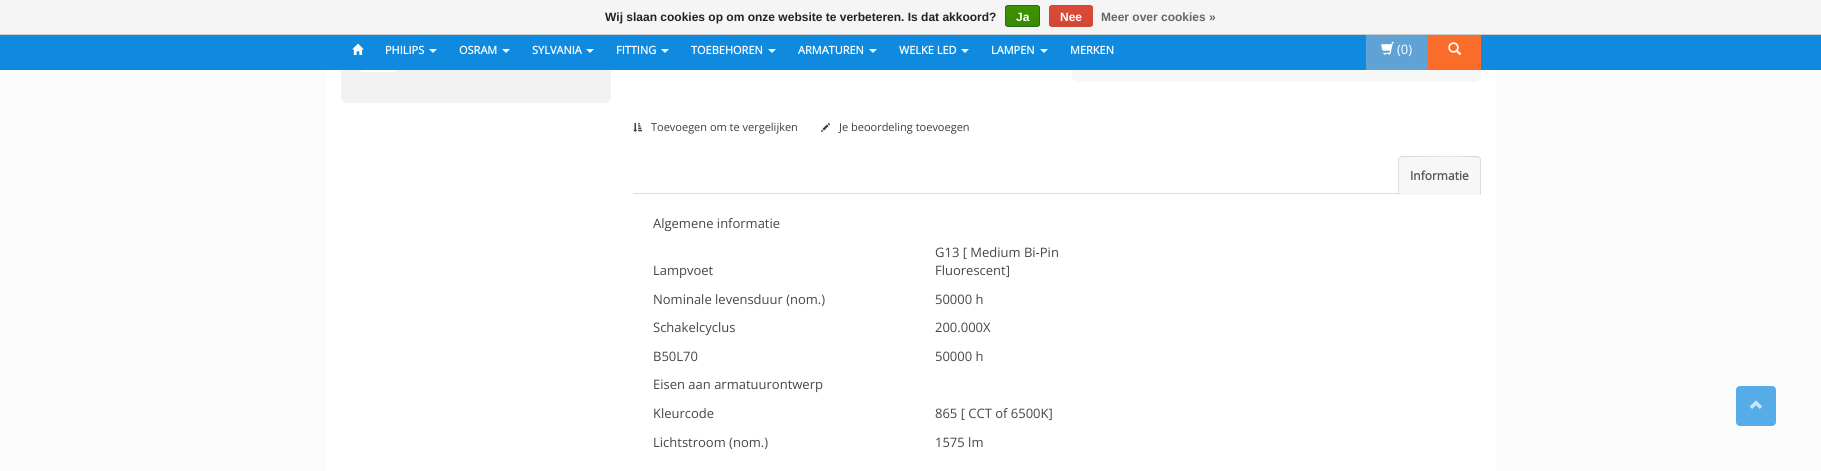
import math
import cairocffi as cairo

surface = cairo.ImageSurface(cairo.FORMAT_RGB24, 1821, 471)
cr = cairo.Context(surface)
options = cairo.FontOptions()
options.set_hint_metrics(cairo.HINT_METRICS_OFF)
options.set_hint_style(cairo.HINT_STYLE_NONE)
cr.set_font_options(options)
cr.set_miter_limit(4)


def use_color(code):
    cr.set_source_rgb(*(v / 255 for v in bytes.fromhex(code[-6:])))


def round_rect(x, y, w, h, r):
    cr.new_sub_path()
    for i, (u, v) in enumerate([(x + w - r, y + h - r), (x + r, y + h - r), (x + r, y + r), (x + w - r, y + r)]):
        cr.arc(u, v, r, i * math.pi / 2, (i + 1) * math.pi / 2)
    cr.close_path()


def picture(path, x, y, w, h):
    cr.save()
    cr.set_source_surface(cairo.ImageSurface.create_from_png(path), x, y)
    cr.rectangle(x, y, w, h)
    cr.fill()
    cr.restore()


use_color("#fcfcfc")
cr.paint()
use_color("#ffffff")
cr.rectangle(326, 70, 1170, 401)
cr.fill()
use_color("#f2f2f2")
round_rect(341, -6, 270, 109, 6)
cr.fill()
use_color("#f7f7f7")
round_rect(1072, -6, 409, 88, 6)
cr.fill()
use_color("#f5f5f5")
cr.rectangle(0, 0, 1821, 34)
cr.fill()
use_color("#cccccc")
cr.rectangle(0, 34, 1821, 1)
cr.fill()
cr.select_font_face("Liberation Sans", cairo.FONT_SLANT_NORMAL, cairo.FONT_WEIGHT_BOLD)
cr.set_font_size(12)
use_color("#222222")
cr.move_to(605, 21)
cr.show_text("Wij slaan cookies op om onze website te verbeteren. Is dat akkoord?")
cr.save()
round_rect(1005, 5, 35, 22, 3)
cr.clip()
gradient = cairo.LinearGradient(1023, 6, 1023, 26)
gradient.add_color_stop_rgba(0, 0.235, 0.576, 0, 1)
gradient.add_color_stop_rgba(1, 0.224, 0.541, 0, 1)
cr.set_source(gradient)
cr.rectangle(1005, 6, 35, 20)
cr.fill()
cr.restore()
round_rect(1005.5, 5.5, 34, 21, 2.5)
use_color("#29691d")
cr.set_line_width(1)
cr.stroke()
use_color("#ffffff")
cr.move_to(1016, 21)
cr.show_text("Ja")
cr.save()
round_rect(1049, 5, 44, 22, 3)
cr.clip()
gradient = cairo.LinearGradient(1071, 6, 1071, 26)
gradient.add_color_stop_rgba(0, 0.863, 0.29, 0.22, 1)
gradient.add_color_stop_rgba(1, 0.82, 0.282, 0.212, 1)
cr.set_source(gradient)
cr.rectangle(1049, 6, 44, 20)
cr.fill()
cr.restore()
round_rect(1049.5, 5.5, 43, 21, 2.5)
use_color("#d14836")
cr.stroke()
use_color("#ffffff")
cr.move_to(1060, 21)
cr.show_text("Nee")
use_color("#666666")
cr.move_to(1101, 21)
cr.show_text("Meer over cookies »")
use_color("#0f8ade")
cr.rectangle(0, 35, 1821, 35)
cr.fill()
picture("img1.png", 352, 43, 12, 12)
cr.select_font_face("Open Sans", cairo.FONT_SLANT_NORMAL, cairo.FONT_WEIGHT_BOLD)
cr.set_font_size(11)
use_color("#ffffff")
cr.move_to(385, 54)
cr.show_text("PHILIPS")
cr.new_path()
cr.move_to(429, 49)
cr.line_to(437, 49)
cr.line_to(433, 53)
cr.close_path()
cr.fill()
cr.move_to(459, 54)
cr.show_text("OSRAM")
cr.new_path()
cr.move_to(502, 49)
cr.line_to(510, 49)
cr.line_to(506, 53)
cr.close_path()
cr.fill()
cr.move_to(532, 54)
cr.show_text("SYLVANIA")
cr.new_path()
cr.move_to(586, 49)
cr.line_to(594, 49)
cr.line_to(590, 53)
cr.close_path()
cr.fill()
cr.move_to(616, 54)
cr.show_text("FITTING")
cr.new_path()
cr.move_to(661, 49)
cr.line_to(669, 49)
cr.line_to(665, 53)
cr.close_path()
cr.fill()
cr.move_to(691, 54)
cr.show_text("TOEBEHOREN")
cr.new_path()
cr.move_to(768, 49)
cr.line_to(776, 49)
cr.line_to(772, 53)
cr.close_path()
cr.fill()
cr.move_to(798, 54)
cr.show_text("ARMATUREN")
cr.new_path()
cr.move_to(869, 49)
cr.line_to(877, 49)
cr.line_to(873, 53)
cr.close_path()
cr.fill()
cr.move_to(899, 54)
cr.show_text("WELKE LED")
cr.new_path()
cr.move_to(961, 49)
cr.line_to(969, 49)
cr.line_to(965, 53)
cr.close_path()
cr.fill()
cr.move_to(991, 54)
cr.show_text("LAMPEN")
cr.new_path()
cr.move_to(1040, 49)
cr.line_to(1048, 49)
cr.line_to(1044, 53)
cr.close_path()
cr.fill()
cr.move_to(1070, 54)
cr.show_text("MERKEN")
use_color("#5fa3d6")
cr.rectangle(1366, 35, 62, 35)
cr.fill()
picture("img2.png", 1381, 42, 13, 13)
cr.select_font_face("Open Sans")
cr.set_font_size(13)
use_color("#ffffff")
cr.move_to(1397, 54)
cr.show_text("(0)")
use_color("#fa6c2a")
cr.rectangle(1428, 35, 53, 35)
cr.fill()
picture("img3.png", 1448, 42, 14, 14)
picture("img4.png", 361, 70, 35, 2)
picture("img5.png", 633, 123, 9, 9)
cr.set_font_size(11)
use_color("#3c3d3d")
cr.move_to(651, 131)
cr.show_text("Toevoegen om te vergelijken")
picture("img6.png", 821, 123, 10, 9)
cr.move_to(839, 131)
cr.show_text("Je beoordeling toevoegen")
use_color("#dddddd")
cr.rectangle(633, 193, 765, 1)
cr.fill()
use_color("#f7f7f7")
cr.new_path()
cr.move_to(1402, 156)
cr.line_to(1477, 156)
cr.curve_to(1479, 156, 1481, 158, 1481, 160)
cr.line_to(1481, 195)
cr.line_to(1398, 195)
cr.line_to(1398, 160)
cr.curve_to(1398, 158, 1400, 156, 1402, 156)
cr.close_path()
cr.fill()
use_color("#dddddd")
cr.new_path()
cr.move_to(1402, 156)
cr.line_to(1399, 157)
cr.line_to(1400, 158)
cr.line_to(1402, 157)
cr.line_to(1414, 157)
cr.curve_to(1422, 157, 1477, 156, 1479, 158)
cr.line_to(1480, 157)
cr.line_to(1477, 156)
cr.close_path()
cr.fill()
cr.new_path()
cr.move_to(1481, 195)
cr.line_to(1481, 160)
cr.curve_to(1481, 159, 1480.5, 158, 1480, 157)
cr.line_to(1479, 158)
cr.curve_to(1480, 158, 1480, 159, 1480, 160)
cr.line_to(1480, 194)
cr.close_path()
cr.fill()
cr.new_path()
cr.move_to(1398, 195)
cr.line_to(1399, 194)
cr.line_to(1399, 160)
cr.curve_to(1399, 159, 1399, 158, 1400, 158)
cr.line_to(1399, 157)
cr.curve_to(1398.5, 158, 1398, 159, 1398, 160)
cr.close_path()
cr.fill()
cr.select_font_face("Open Sans", cairo.FONT_SLANT_NORMAL, cairo.FONT_WEIGHT_BOLD)
cr.set_font_size(12)
use_color("#555555")
cr.move_to(1410, 180)
cr.show_text("Informatie")
cr.select_font_face("Open Sans")
cr.set_font_size(13)
use_color("#474647")
cr.move_to(653, 228)
cr.show_text("Algemene informatie")
cr.move_to(653, 275)
cr.show_text("Lampvoet")
cr.move_to(935, 257)
cr.show_text("G13 [ Medium Bi-Pin")
cr.move_to(935, 275)
cr.show_text("Fluorescent]")
cr.move_to(653, 304)
cr.show_text("Nominale levensduur (nom.)")
cr.move_to(935, 304)
cr.show_text("50000 h")
cr.move_to(653, 332)
cr.show_text("Schakelcyclus")
cr.move_to(935, 332)
cr.show_text("200.000X")
cr.move_to(653, 361)
cr.show_text("B50L70")
cr.move_to(935, 361)
cr.show_text("50000 h")
cr.move_to(653, 389)
cr.show_text("Eisen aan armatuurontwerp")
cr.move_to(653, 418)
cr.show_text("Kleurcode")
cr.move_to(935, 418)
cr.show_text("865 [ CCT of 6500K]")
cr.move_to(653, 447)
cr.show_text("Lichtstroom (nom.)")
cr.move_to(935, 447)
cr.show_text("1575 lm")
use_color("#56ace7")
round_rect(1736, 386, 40, 40, 4)
cr.fill()
picture("img7.png", 1749, 400, 14, 9)
surface.write_to_png("result.png")
